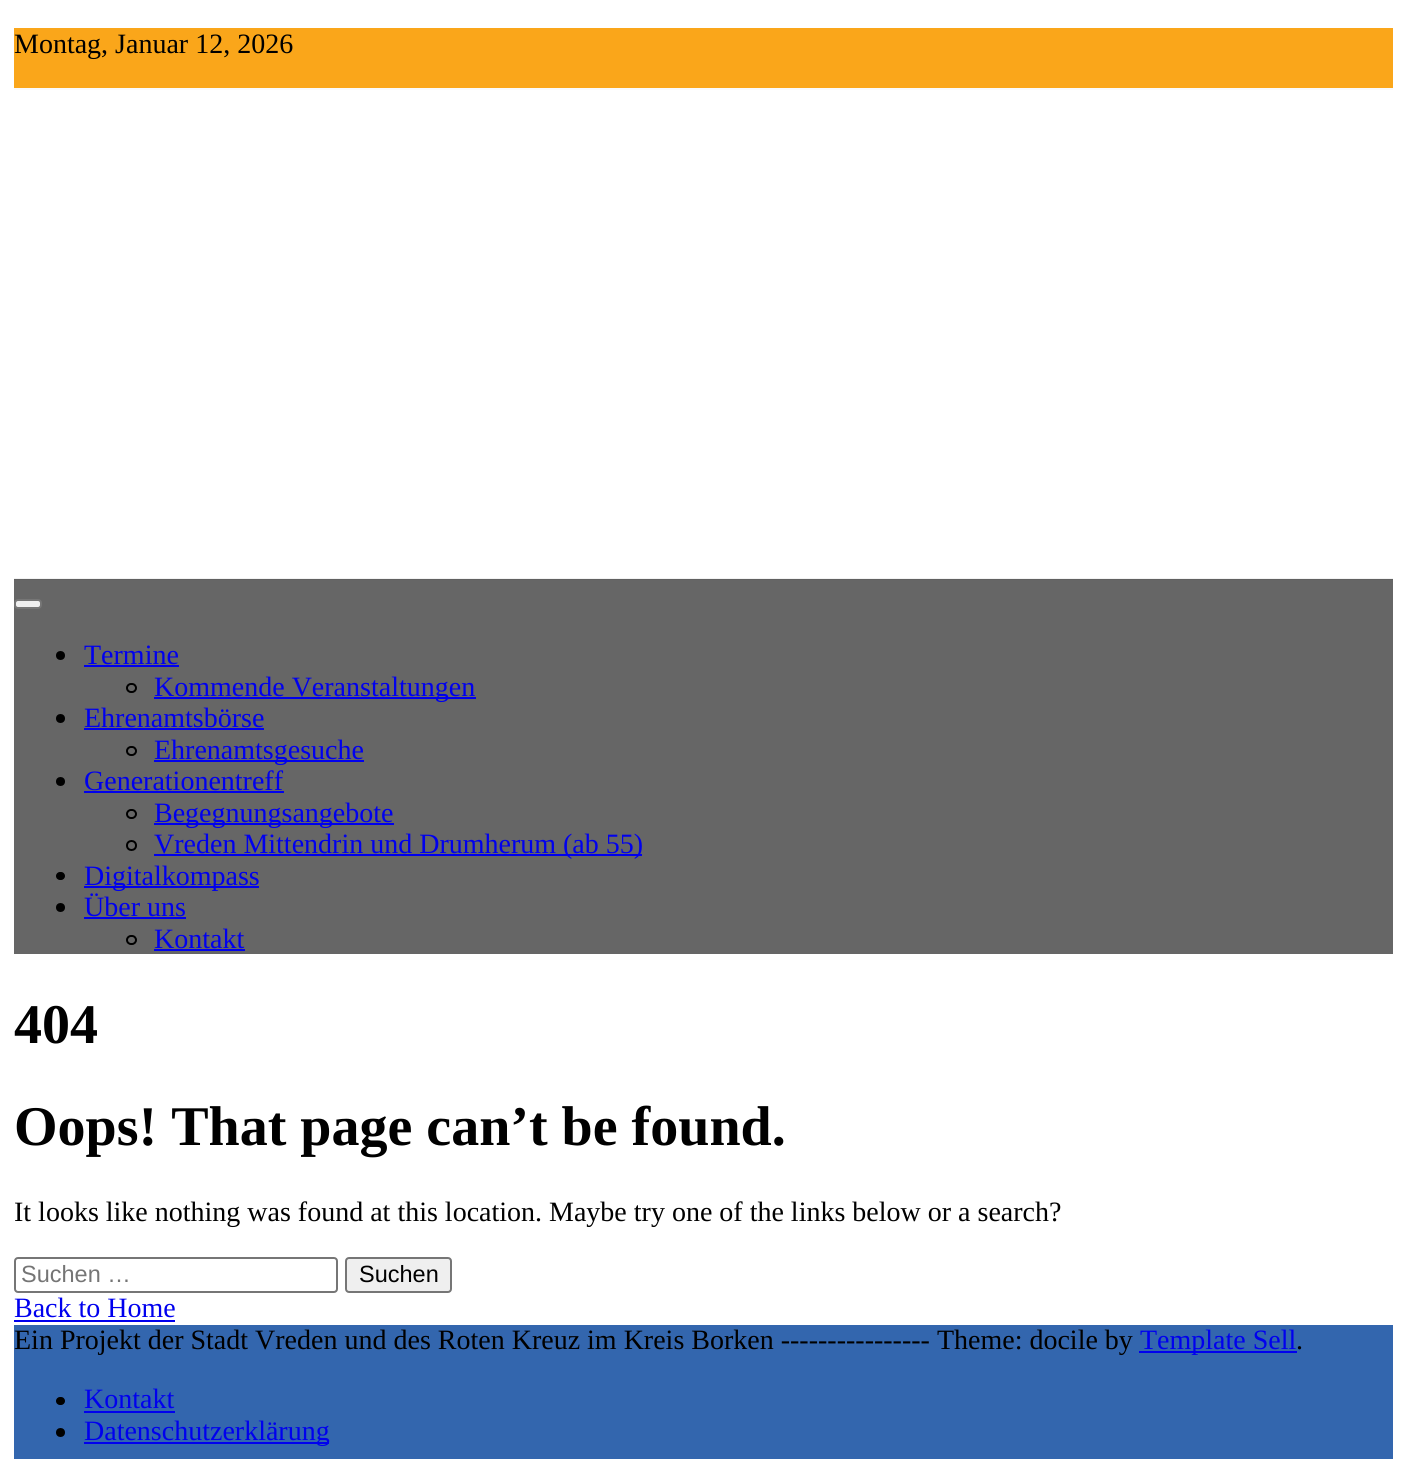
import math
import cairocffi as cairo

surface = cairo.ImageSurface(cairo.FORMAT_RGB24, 1407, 1459)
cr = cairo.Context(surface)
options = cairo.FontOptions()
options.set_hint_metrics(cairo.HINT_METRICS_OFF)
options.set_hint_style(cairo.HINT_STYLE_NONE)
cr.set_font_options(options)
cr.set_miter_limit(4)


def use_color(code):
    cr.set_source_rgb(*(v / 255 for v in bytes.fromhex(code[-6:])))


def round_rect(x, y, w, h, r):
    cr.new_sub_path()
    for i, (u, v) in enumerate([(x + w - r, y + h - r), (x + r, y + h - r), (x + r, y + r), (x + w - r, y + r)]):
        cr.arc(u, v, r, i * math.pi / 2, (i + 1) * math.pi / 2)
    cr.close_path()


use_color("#ffffff")
cr.paint()
use_color("#666666")
cr.rectangle(14, 580, 1379, 374)
cr.fill()
use_color("#faa61a")
cr.rectangle(14, 28, 1379, 60)
cr.fill()
use_color("#fafafa")
cr.rectangle(14, 88, 1379, 2)
cr.fill()
cr.select_font_face("Liberation Serif")
cr.set_font_size(28)
use_color("#000000")
cr.move_to(14, 53)
cr.show_text("Montag, Januar 12, 2026")
use_color("#f2f2f2")
cr.rectangle(14, 578, 1379, 1)
cr.fill()
use_color("#616161")
cr.rectangle(14, 579, 1379, 1)
cr.fill()
use_color("#efefef")
round_rect(15, 600, 26, 8, 3)
cr.fill_preserve()
use_color("#767676")
cr.stroke()
use_color("#000000")
cr.arc(60.5, 655.5, 4.5, 0, 2 * math.pi)
cr.fill()
use_color("#0000ee")
cr.move_to(84, 664)
cr.show_text("Termine")
cr.rectangle(84, 665, 95, 2)
cr.fill()
round_rect(127, 684, 9, 8, 4)
use_color("#000000")
cr.stroke()
use_color("#0000ee")
cr.rectangle(154, 697, 322, 2)
cr.fill()
cr.move_to(154, 696)
cr.show_text("Kommende Veranstaltungen")
use_color("#000000")
cr.new_path()
cr.arc(60.5, 718.5, 4.5, 0, 2 * math.pi)
cr.fill()
use_color("#0000ee")
cr.move_to(84, 727)
cr.show_text("Ehrenamtsbörse")
cr.rectangle(84, 728, 180, 2)
cr.fill()
round_rect(127, 747, 9, 8, 4)
use_color("#000000")
cr.stroke()
use_color("#0000ee")
cr.rectangle(154, 760, 210, 2)
cr.fill()
cr.move_to(154, 759)
cr.show_text("Ehrenamtsgesuche")
use_color("#000000")
cr.new_path()
cr.arc(60.5, 781.5, 4.5, 0, 2 * math.pi)
cr.fill()
use_color("#0000ee")
cr.move_to(84, 790)
cr.show_text("Generationentreff")
cr.rectangle(84, 791, 200, 2)
cr.fill()
round_rect(127, 810, 9, 8, 4)
use_color("#000000")
cr.stroke()
use_color("#0000ee")
cr.rectangle(154, 823, 240, 2)
cr.fill()
cr.move_to(154, 822)
cr.show_text("Begegnungsangebote")
cr.new_path()
cr.arc(131.5, 845.5, 4.5, 0, 2 * math.pi)
use_color("#000000")
cr.stroke()
use_color("#0000ee")
cr.rectangle(154, 854, 488, 2)
cr.fill()
cr.move_to(154, 853)
cr.show_text("Vreden Mittendrin und Drumherum (ab 55)")
use_color("#000000")
round_rect(56, 872, 9, 8, 4)
cr.fill()
use_color("#0000ee")
cr.rectangle(84, 886, 175, 2)
cr.fill()
cr.move_to(84, 885)
cr.show_text("Digitalkompass")
use_color("#000000")
cr.new_path()
cr.arc(60.5, 907.5, 4.5, 0, 2 * math.pi)
cr.fill()
use_color("#0000ee")
cr.move_to(84, 916)
cr.show_text("Über uns")
cr.rectangle(84, 917, 102, 2)
cr.fill()
round_rect(127, 936, 9, 8, 4)
use_color("#000000")
cr.stroke()
use_color("#0000ee")
cr.move_to(154, 948)
cr.show_text("Kontakt")
cr.rectangle(154, 949, 91, 2)
cr.fill()
cr.select_font_face("Liberation Serif", cairo.FONT_SLANT_NORMAL, cairo.FONT_WEIGHT_BOLD)
cr.set_font_size(56)
use_color("#000000")
cr.move_to(14, 1043)
cr.show_text("404")
cr.move_to(14, 1145)
cr.show_text("Oops! That page can’t be found.")
cr.select_font_face("Liberation Serif")
cr.set_font_size(28)
cr.move_to(14, 1221)
cr.show_text("It looks like nothing was found at this location. Maybe try one of the links below or a search?")
round_rect(15, 1258, 322, 34, 3)
use_color("#767676")
cr.stroke()
cr.select_font_face("Liberation Sans")
cr.set_font_size(23.5)
use_color("#757575")
cr.move_to(21, 1282)
cr.show_text("Suchen …")
use_color("#efefef")
round_rect(346, 1258, 105, 34, 3)
cr.fill_preserve()
use_color("#767676")
cr.stroke()
use_color("#000000")
cr.move_to(359, 1282)
cr.show_text("Suchen")
cr.select_font_face("Liberation Serif")
cr.set_font_size(28)
use_color("#0000ee")
cr.move_to(14, 1317)
cr.show_text("Back to Home")
cr.rectangle(14, 1320, 161, 2)
cr.fill()
use_color("#3366ae")
cr.rectangle(14, 1325, 1379, 134)
cr.fill()
use_color("#000000")
cr.move_to(14, 1349)
cr.show_text("Ein Projekt der Stadt Vreden und des Roten Kreuz im Kreis Borken ---------------- Theme: docile by")
use_color("#0000ee")
cr.rectangle(1139, 1351, 158, 2)
cr.fill()
cr.move_to(1140, 1349)
cr.show_text("Template Sell")
use_color("#000000")
cr.move_to(1296, 1349)
cr.show_text(".")
round_rect(56, 1397, 9, 8, 4)
cr.fill()
use_color("#0000ee")
cr.move_to(84, 1408)
cr.show_text("Kontakt")
cr.rectangle(84, 1411, 91, 2)
cr.fill()
use_color("#000000")
cr.arc(60.5, 1432.5, 4.5, 0, 2 * math.pi)
cr.fill()
use_color("#0000ee")
cr.rectangle(84, 1442, 245, 2)
cr.fill()
cr.move_to(84, 1440)
cr.show_text("Datenschutzerklärung")
surface.write_to_png("result.png")
